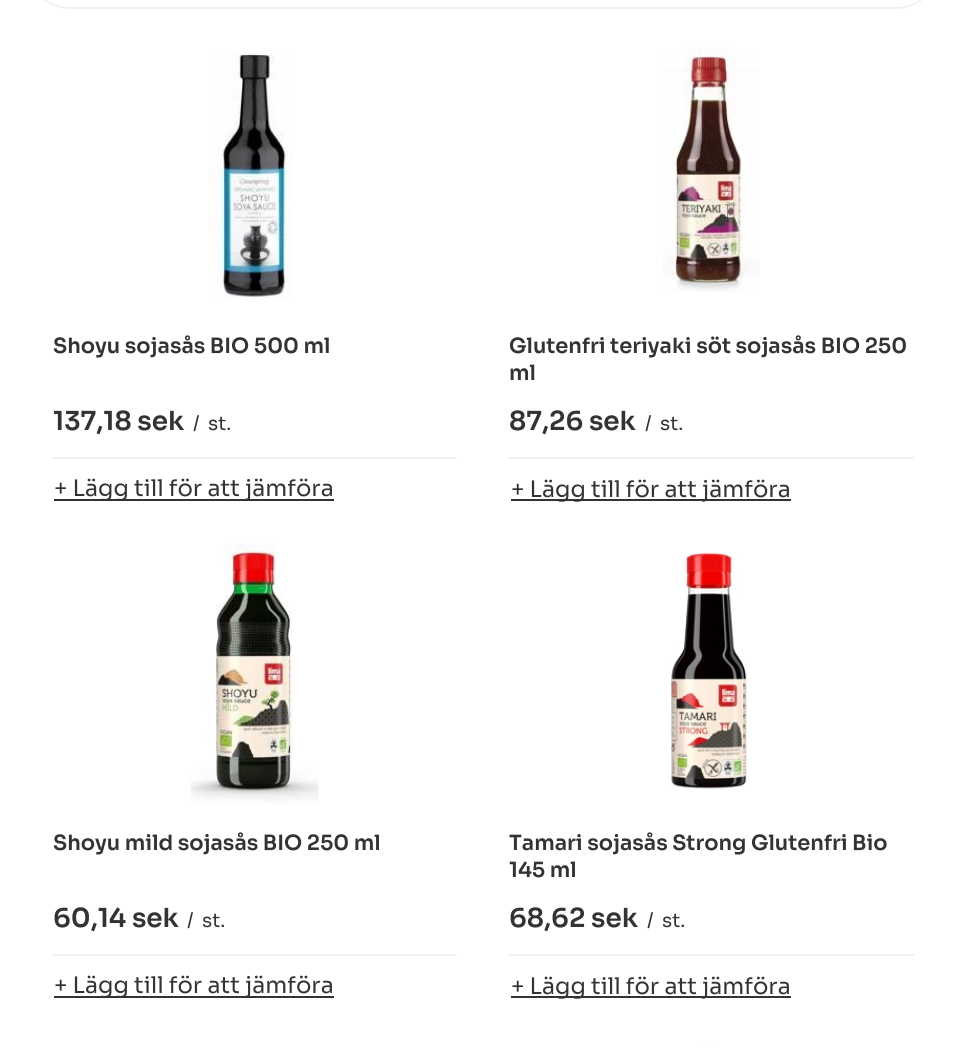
import math
import cairocffi as cairo

surface = cairo.ImageSurface(cairo.FORMAT_RGB24, 966, 1048)
cr = cairo.Context(surface)
options = cairo.FontOptions()
options.set_hint_metrics(cairo.HINT_METRICS_OFF)
options.set_hint_style(cairo.HINT_STYLE_NONE)
cr.set_font_options(options)
cr.set_miter_limit(4)


def use_color(code):
    cr.set_source_rgb(*(v / 255 for v in bytes.fromhex(code[-6:])))


def round_rect(x, y, w, h, r):
    cr.new_sub_path()
    for i, (u, v) in enumerate([(x + w - r, y + h - r), (x + r, y + h - r), (x + r, y + r), (x + w - r, y + r)]):
        cr.arc(u, v, r, i * math.pi / 2, (i + 1) * math.pi / 2)
    cr.close_path()


def picture(path, x, y, w, h):
    cr.save()
    cr.set_source_surface(cairo.ImageSurface.create_from_png(path), x, y)
    cr.rectangle(x, y, w, h)
    cr.fill()
    cr.restore()


use_color("#ffffff")
cr.paint()
round_rect(27, -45, 912, 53, 43)
use_color("#f1f1f1")
cr.stroke()
picture("img1.png", 208, 51, 85, 248)
cr.select_font_face("Sora SemiBold")
cr.set_font_size(21)
use_color("#333333")
cr.move_to(53, 353)
cr.show_text("Shoyu sojasås BIO 500 ml")
cr.set_font_size(26.25)
cr.move_to(53, 430)
cr.show_text("137,18 sek")
cr.select_font_face("Sora")
cr.set_font_size(19)
cr.move_to(193, 430)
cr.show_text("/")
cr.move_to(208, 430)
cr.show_text("st.")
use_color("#f1f1f1")
cr.rectangle(53, 457, 404, 2)
cr.fill()
use_color("#333333")
cr.rectangle(54, 499, 280, 2)
cr.fill()
cr.set_font_size(22.75)
cr.move_to(54, 496)
cr.show_text("+ Lägg till för att jämföra")
picture("img2.png", 663, 47, 97, 246)
cr.select_font_face("Sora SemiBold")
cr.set_font_size(21)
cr.move_to(509, 353)
cr.show_text("Glutenfri teriyaki söt sojasås BIO 250")
cr.move_to(509, 380)
cr.show_text("ml")
cr.set_font_size(26.25)
cr.move_to(509, 430)
cr.show_text("87,26 sek")
cr.select_font_face("Sora")
cr.set_font_size(19)
cr.move_to(645, 430)
cr.show_text("/")
cr.move_to(660, 430)
cr.show_text("st.")
use_color("#f1f1f1")
cr.rectangle(509, 457, 405, 2)
cr.fill()
use_color("#333333")
cr.rectangle(511, 499, 280, 2)
cr.fill()
cr.set_font_size(22.75)
cr.move_to(511, 497)
cr.show_text("+ Lägg till för att jämföra")
picture("img3.png", 190, 543, 129, 261)
cr.select_font_face("Sora SemiBold")
cr.set_font_size(21)
cr.move_to(53, 850)
cr.show_text("Shoyu mild sojasås BIO 250 ml")
cr.set_font_size(26.25)
cr.move_to(53, 927)
cr.show_text("60,14 sek")
cr.select_font_face("Sora")
cr.set_font_size(19)
cr.move_to(187, 927)
cr.show_text("/")
cr.move_to(202, 927)
cr.show_text("st.")
use_color("#f1f1f1")
cr.rectangle(53, 954, 404, 2)
cr.fill()
use_color("#333333")
cr.rectangle(54, 996, 280, 2)
cr.fill()
cr.set_font_size(22.75)
cr.move_to(54, 993)
cr.show_text("+ Lägg till för att jämföra")
picture("img4.png", 670, 552, 78, 237)
cr.select_font_face("Sora SemiBold")
cr.set_font_size(21)
cr.move_to(509, 850)
cr.show_text("Tamari sojasås Strong Glutenfri Bio")
cr.move_to(509, 877)
cr.show_text("145 ml")
cr.set_font_size(26.25)
cr.move_to(509, 927)
cr.show_text("68,62 sek")
cr.select_font_face("Sora")
cr.set_font_size(19)
cr.move_to(647, 927)
cr.show_text("/")
cr.move_to(662, 927)
cr.show_text("st.")
use_color("#f1f1f1")
cr.rectangle(509, 954, 405, 2)
cr.fill()
use_color("#333333")
cr.rectangle(511, 996, 280, 2)
cr.fill()
cr.set_font_size(22.75)
cr.move_to(511, 994)
cr.show_text("+ Lägg till för att jämföra")
use_color("#fefefa")
cr.rectangle(699, 1047, 16, 1)
cr.fill()
surface.write_to_png("result.png")
